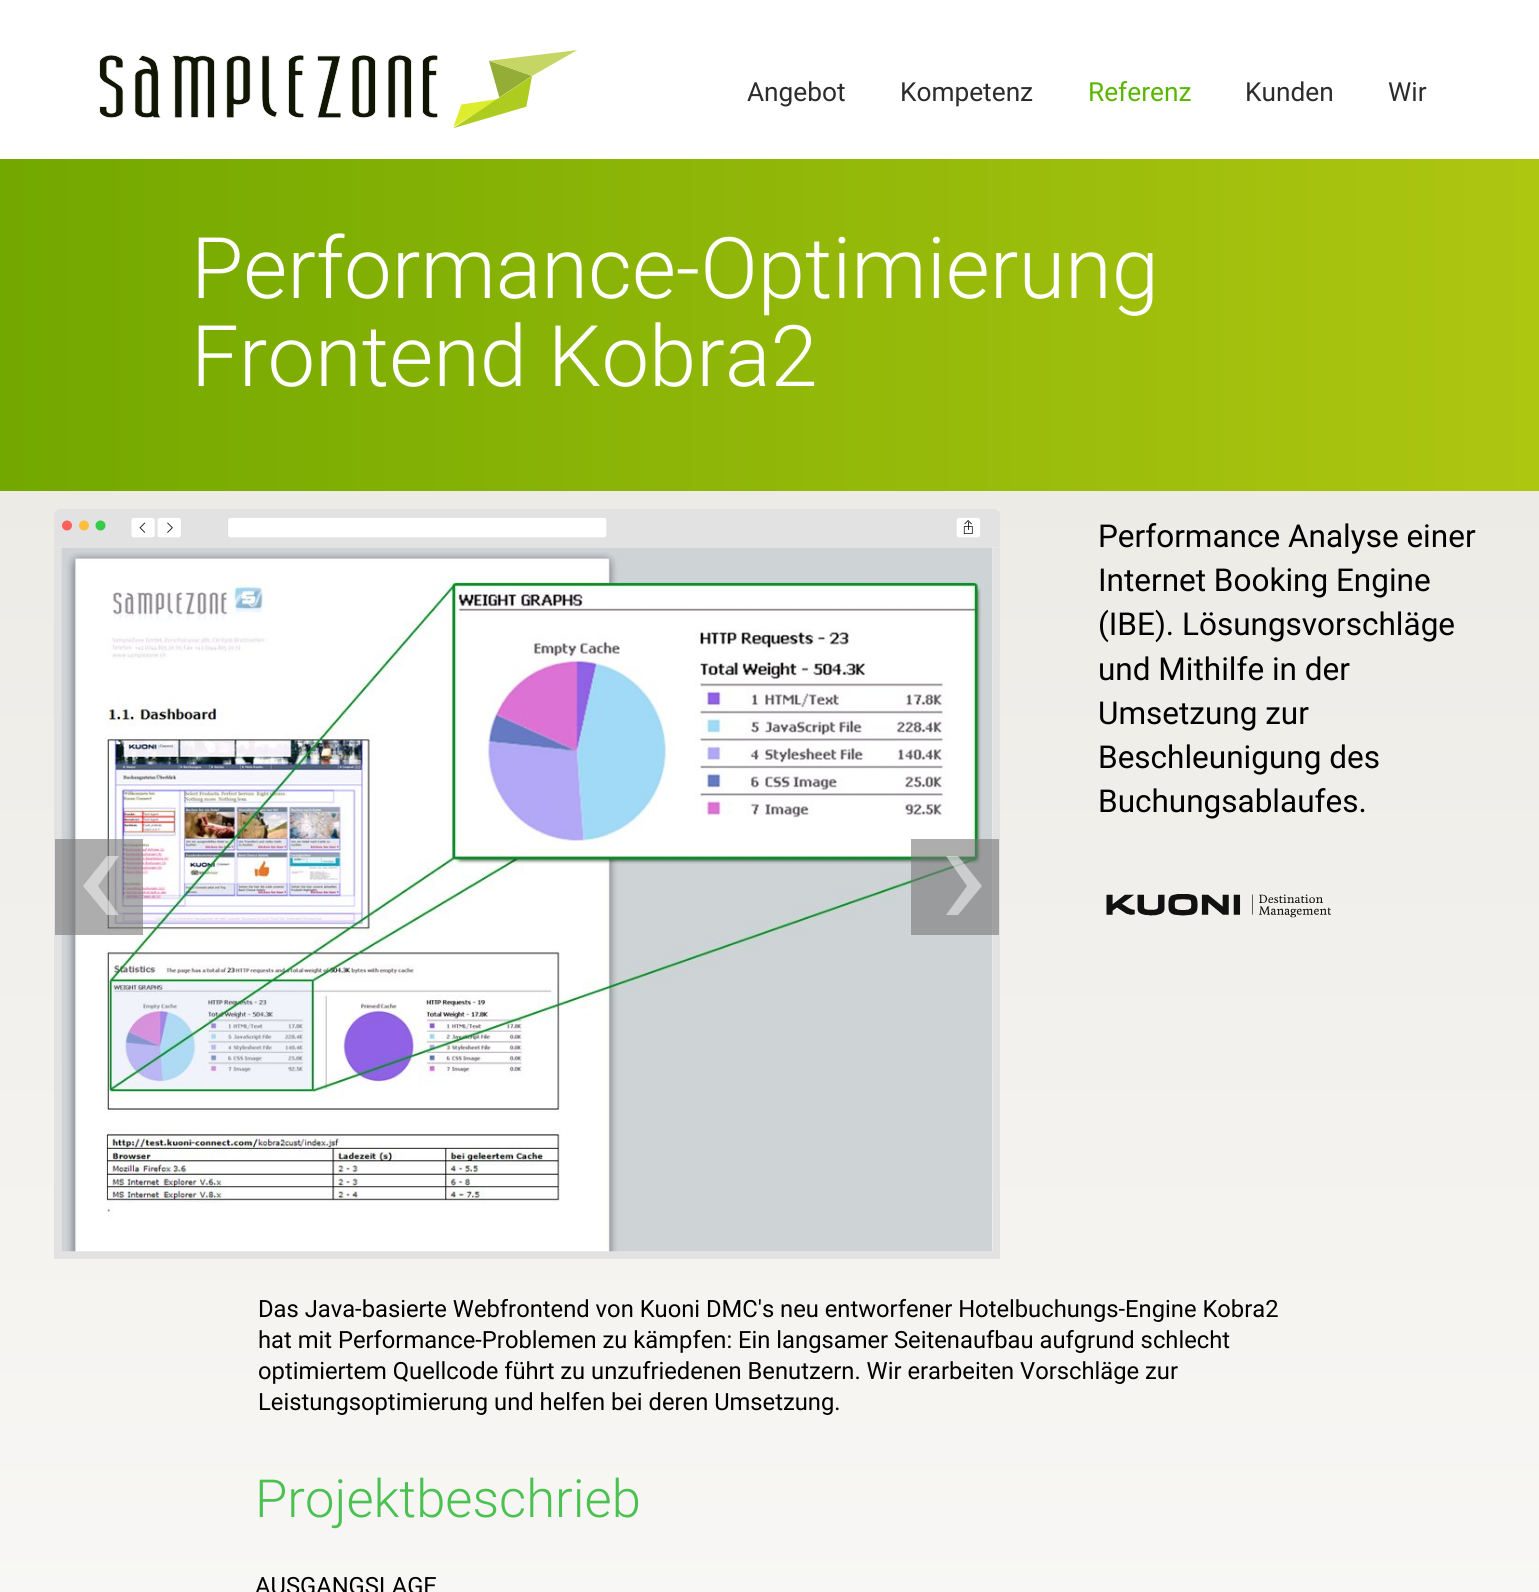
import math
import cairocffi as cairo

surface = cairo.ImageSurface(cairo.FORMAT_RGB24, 1539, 1592)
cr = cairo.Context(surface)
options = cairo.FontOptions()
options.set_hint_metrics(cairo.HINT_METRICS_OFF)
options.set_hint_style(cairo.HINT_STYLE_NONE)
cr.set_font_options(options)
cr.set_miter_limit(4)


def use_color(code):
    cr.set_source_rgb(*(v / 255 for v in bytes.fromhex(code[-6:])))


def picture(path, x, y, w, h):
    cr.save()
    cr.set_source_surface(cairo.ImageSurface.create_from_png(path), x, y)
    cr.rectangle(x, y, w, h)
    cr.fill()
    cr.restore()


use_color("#ffffff")
cr.paint()
picture("img1.png", 99, 50, 478, 79)
cr.select_font_face("Roboto")
cr.set_font_size(26.25)
use_color("#2c2c2c")
cr.move_to(747, 101)
cr.show_text("Angebot")
cr.move_to(900, 101)
cr.show_text("Kompetenz")
use_color("#5bb500")
cr.move_to(1088, 101)
cr.show_text("Referenz")
use_color("#2c2c2c")
cr.move_to(1245, 101)
cr.show_text("Kunden")
cr.move_to(1388, 101)
cr.show_text("Wir")
gradient = cairo.LinearGradient(0, 316, 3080, 316)
gradient.add_color_stop_rgba(0, 0.451, 0.659, 0, 1)
gradient.add_color_stop_rgba(1, 0.91, 0.894, 0.129, 1)
cr.set_source(gradient)
cr.rectangle(0, 159, 1539, 332)
cr.fill()
cr.select_font_face("Roboto Light")
cr.set_font_size(85)
use_color("#ffffff")
cr.move_to(191, 298)
cr.show_text("Performance-Optimierung")
cr.move_to(191, 386)
cr.show_text("Frontend Kobra2")
gradient = cairo.LinearGradient(770, 491, 770, 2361)
gradient.add_color_stop_rgba(0, 0.929, 0.922, 0.902, 1)
gradient.add_color_stop_rgba(1, 1, 1, 1, 1)
cr.set_source(gradient)
cr.rectangle(0, 491, 1539, 1101)
cr.fill()
picture("img2.png", 54, 509, 946, 39)
use_color("#e2e2e2")
cr.rectangle(993, 548, 7, 711)
cr.fill()
cr.rectangle(54, 1251, 946, 8)
cr.fill()
cr.rectangle(54, 548, 7, 711)
cr.fill()
picture("img3.png", 61, 547, 932, 705)
cr.set_source_rgba(0.467, 0.467, 0.467, 0.6)
cr.rectangle(55, 839, 88, 96)
cr.fill()
cr.set_source_rgba(0.933, 0.933, 0.933, 0.6)
cr.new_path()
cr.move_to(119, 856)
cr.line_to(107, 856)
cr.line_to(83, 886)
cr.line_to(107, 915)
cr.line_to(119, 915)
cr.line_to(98, 886)
cr.close_path()
cr.fill()
cr.set_source_rgba(0.467, 0.467, 0.467, 0.6)
cr.rectangle(911, 839, 88, 96)
cr.fill()
cr.set_source_rgba(0.933, 0.933, 0.933, 0.6)
cr.new_path()
cr.move_to(958, 856)
cr.line_to(946, 856)
cr.line_to(967, 886)
cr.line_to(946, 915)
cr.line_to(958, 915)
cr.line_to(982, 886)
cr.close_path()
cr.fill()
cr.select_font_face("Roboto")
cr.set_font_size(31.5)
use_color("#000000")
cr.move_to(1098, 547)
cr.show_text("Performance Analyse einer")
cr.move_to(1098, 591)
cr.show_text("Internet Booking Engine")
cr.move_to(1098, 635)
cr.show_text("(IBE). Lösungsvorschläge")
cr.move_to(1098, 680)
cr.show_text("und Mithilfe in der")
cr.move_to(1098, 724)
cr.show_text("Umsetzung zur")
cr.move_to(1098, 768)
cr.show_text("Beschleunigung des")
cr.move_to(1098, 812)
cr.show_text("Buchungsablaufes.")
picture("img4.png", 1106, 894, 225, 24)
cr.set_font_size(23.75)
cr.move_to(258, 1317)
cr.show_text("Das Java-basierte Webfrontend von Kuoni DMC's neu entworfener Hotelbuchungs-Engine Kobra2")
cr.move_to(258, 1348)
cr.show_text("hat mit Performance-Problemen zu kämpfen: Ein langsamer Seitenaufbau aufgrund schlecht")
cr.move_to(258, 1379)
cr.show_text("optimiertem Quellcode führt zu unzufriedenen Benutzern. Wir erarbeiten Vorschläge zur")
cr.move_to(258, 1410)
cr.show_text("Leistungsoptimierung und helfen bei deren Umsetzung.")
cr.select_font_face("Roboto Light")
cr.set_font_size(52.5)
use_color("#4bc152")
cr.move_to(255, 1517)
cr.show_text("Projektbeschrieb")
cr.select_font_face("Roboto")
cr.set_font_size(23.75)
use_color("#000000")
cr.move_to(255, 1594)
cr.show_text("AUSGANGSLAGE")
surface.write_to_png("result.png")
